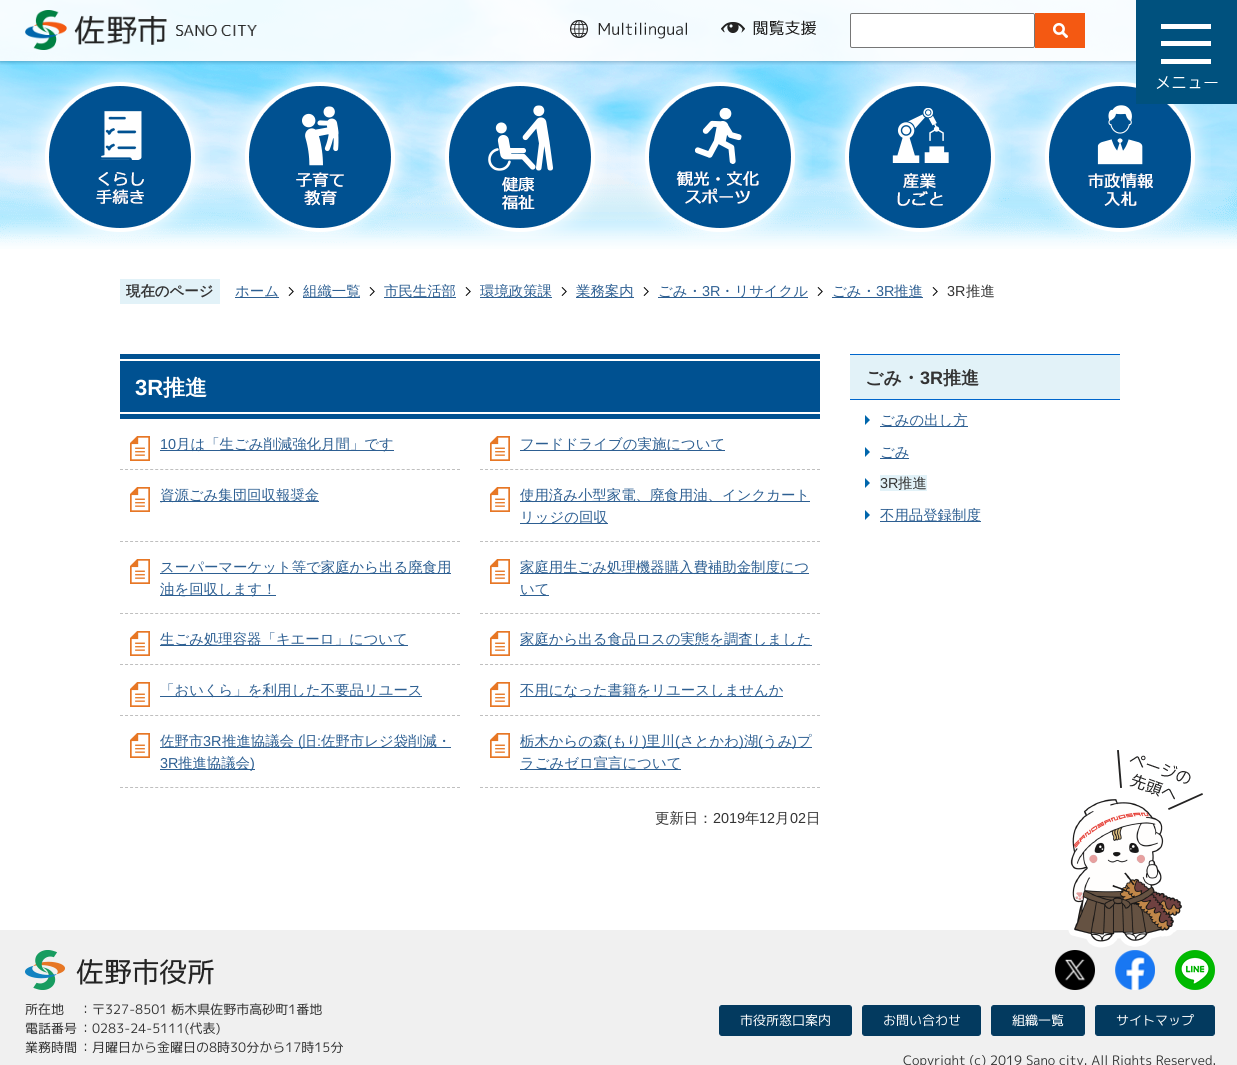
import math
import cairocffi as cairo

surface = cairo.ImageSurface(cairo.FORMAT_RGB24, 1237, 1065)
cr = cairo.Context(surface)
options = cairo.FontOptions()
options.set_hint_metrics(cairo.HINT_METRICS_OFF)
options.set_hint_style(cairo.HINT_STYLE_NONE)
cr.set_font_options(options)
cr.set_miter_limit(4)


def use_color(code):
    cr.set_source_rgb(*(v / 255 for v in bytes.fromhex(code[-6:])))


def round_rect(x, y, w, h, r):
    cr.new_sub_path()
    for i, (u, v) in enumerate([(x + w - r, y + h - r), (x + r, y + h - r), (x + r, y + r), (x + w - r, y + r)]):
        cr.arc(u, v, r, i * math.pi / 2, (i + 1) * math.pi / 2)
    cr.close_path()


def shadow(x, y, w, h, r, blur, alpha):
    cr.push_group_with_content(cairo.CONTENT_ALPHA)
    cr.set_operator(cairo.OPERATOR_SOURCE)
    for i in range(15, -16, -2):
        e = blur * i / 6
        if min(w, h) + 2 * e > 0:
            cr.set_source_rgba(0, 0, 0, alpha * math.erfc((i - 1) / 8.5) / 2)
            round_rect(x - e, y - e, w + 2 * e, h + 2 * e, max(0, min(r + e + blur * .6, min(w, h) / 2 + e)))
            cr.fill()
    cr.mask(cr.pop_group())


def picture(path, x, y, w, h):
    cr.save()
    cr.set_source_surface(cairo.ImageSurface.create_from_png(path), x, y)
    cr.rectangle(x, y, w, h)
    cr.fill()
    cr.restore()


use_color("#ffffff")
cr.paint()
picture("img1.png", 0, 0, 1237, 249)
picture("img7.png", 31, 64, 179, 175)
picture("img8.png", 230, 64, 181, 175)
picture("img9.png", 429, 67, 178, 172)
picture("img10.png", 631, 65, 181, 174)
picture("img11.png", 828, 68, 183, 171)
picture("img12.png", 1030, 67, 181, 173)
cr.save()
cr.rectangle(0, 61, 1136, 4)
cr.clip()
use_color("#033a5f")
shadow(0, 0, 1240, 61, 0, 2.5, 0.5)
cr.restore()
cr.set_source_rgba(1, 1, 1, 0.9)
cr.rectangle(0, 0, 1136, 61)
cr.fill()
picture("img2.png", 25, 10, 232, 40)
picture("img3.png", 570, 20, 117, 19)
picture("img4.png", 721, 20, 95, 16)
use_color("#ffffff")
round_rect(850.5, 13.5, 184, 34, 1.5)
cr.fill_preserve()
use_color("#767676")
cr.set_line_width(1)
cr.stroke()
picture("img5.png", 1035, 13, 50, 35)
picture("img6.png", 1136, 0, 101, 104)
use_color("#e2f2f8")
cr.rectangle(120, 279, 100, 25)
cr.fill()
cr.select_font_face("WenQuanYi Zen Hei", cairo.FONT_SLANT_NORMAL, cairo.FONT_WEIGHT_BOLD)
cr.set_font_size(14.4)
use_color("#333333")
cr.move_to(126, 296)
cr.show_text("現在のページ")
use_color("#2d5f92")
cr.rectangle(235, 297, 44, 1)
cr.fill()
cr.select_font_face("WenQuanYi Zen Hei Medium")
cr.move_to(235, 296)
cr.show_text("ホーム")
picture("img13.png", 288, 287, 6, 9)
cr.rectangle(303, 297, 57, 1)
cr.fill()
cr.move_to(303, 296)
cr.show_text("組織一覧")
picture("img13.png", 369, 287, 6, 9)
cr.rectangle(384, 297, 72, 1)
cr.fill()
cr.move_to(384, 296)
cr.show_text("市民生活部")
picture("img13.png", 465, 287, 6, 9)
cr.rectangle(480, 297, 72, 1)
cr.fill()
cr.move_to(480, 296)
cr.show_text("環境政策課")
picture("img13.png", 561, 287, 6, 9)
cr.rectangle(576, 297, 58, 1)
cr.fill()
cr.move_to(576, 296)
cr.show_text("業務案内")
picture("img13.png", 643, 287, 6, 9)
cr.rectangle(658, 297, 150, 1)
cr.fill()
cr.move_to(658, 296)
cr.show_text("ごみ・")
cr.select_font_face("Liberation Sans")
cr.move_to(702, 296)
cr.show_text("3R")
cr.select_font_face("WenQuanYi Zen Hei Medium")
cr.move_to(720, 296)
cr.show_text("・リサイクル")
picture("img13.png", 817, 287, 6, 9)
cr.rectangle(832, 297, 91, 1)
cr.fill()
cr.move_to(832, 296)
cr.show_text("ごみ・")
cr.select_font_face("Liberation Sans")
cr.move_to(876, 296)
cr.show_text("3R")
cr.select_font_face("WenQuanYi Zen Hei Medium")
cr.move_to(894, 296)
cr.show_text("推進")
picture("img13.png", 932, 287, 6, 9)
cr.select_font_face("Liberation Sans")
use_color("#333333")
cr.move_to(947, 296)
cr.show_text("3R")
cr.select_font_face("WenQuanYi Zen Hei Medium")
cr.move_to(966, 296)
cr.show_text("推進")
use_color("#005191")
cr.rectangle(120, 354, 700, 65)
cr.fill()
use_color("#ffffff")
cr.rectangle(120, 359, 700, 2)
cr.fill()
cr.rectangle(120, 412, 700, 2)
cr.fill()
cr.select_font_face("Liberation Sans", cairo.FONT_SLANT_NORMAL, cairo.FONT_WEIGHT_BOLD)
cr.set_font_size(22)
cr.move_to(135, 395)
cr.show_text("3R")
cr.select_font_face("WenQuanYi Zen Hei", cairo.FONT_SLANT_NORMAL, cairo.FONT_WEIGHT_BOLD)
cr.move_to(163, 395)
cr.show_text("推進")
picture("img14.png", 130, 436, 20, 25)
cr.new_path()
cr.move_to(120, 469.5)
cr.line_to(460, 469.5)
use_color("#bfbfbf")
cr.set_dash([3, 2.03])
cr.stroke()
cr.select_font_face("Liberation Sans")
cr.set_font_size(14.4)
use_color("#2d5f92")
cr.move_to(160, 449)
cr.show_text("10")
cr.rectangle(160, 450, 234, 1)
cr.fill()
cr.select_font_face("WenQuanYi Zen Hei Medium")
cr.move_to(176, 449)
cr.show_text("月は「生ごみ削減強化月間」です")
picture("img14.png", 490, 436, 20, 25)
cr.new_path()
cr.move_to(480, 469.5)
cr.line_to(820, 469.5)
use_color("#bfbfbf")
cr.stroke()
use_color("#2d5f92")
cr.rectangle(520, 450, 205, 1)
cr.fill()
cr.move_to(520, 449)
cr.show_text("フードドライブの実施について")
picture("img14.png", 130, 487, 20, 25)
cr.new_path()
cr.move_to(120, 541.5)
cr.line_to(460, 541.5)
use_color("#bfbfbf")
cr.stroke()
use_color("#2d5f92")
cr.rectangle(160, 501, 159, 1)
cr.fill()
cr.move_to(160, 500)
cr.show_text("資源ごみ集団回収報奨金")
picture("img14.png", 490, 487, 20, 25)
cr.new_path()
cr.move_to(480, 541.5)
cr.line_to(820, 541.5)
use_color("#bfbfbf")
cr.stroke()
use_color("#2d5f92")
cr.rectangle(520, 501, 290, 1)
cr.fill()
cr.move_to(520, 500)
cr.show_text("使用済み小型家電、廃食用油、インクカート")
cr.rectangle(520, 523, 88, 1)
cr.fill()
cr.move_to(520, 522)
cr.show_text("リッジの回収")
picture("img14.png", 130, 559, 20, 25)
cr.new_path()
cr.move_to(120, 613.5)
cr.line_to(460, 613.5)
use_color("#bfbfbf")
cr.stroke()
use_color("#2d5f92")
cr.rectangle(160, 573, 291, 1)
cr.fill()
cr.move_to(160, 572)
cr.show_text("スーパーマーケット等で家庭から出る廃食用")
cr.rectangle(160, 595, 116, 1)
cr.fill()
cr.move_to(160, 594)
cr.show_text("油を回収します！")
picture("img14.png", 490, 559, 20, 25)
cr.new_path()
cr.move_to(480, 613.5)
cr.line_to(820, 613.5)
use_color("#bfbfbf")
cr.stroke()
use_color("#2d5f92")
cr.rectangle(520, 573, 289, 1)
cr.fill()
cr.move_to(520, 572)
cr.show_text("家庭用生ごみ処理機器購入費補助金制度につ")
cr.rectangle(520, 595, 29, 1)
cr.fill()
cr.move_to(520, 594)
cr.show_text("いて")
picture("img14.png", 130, 631, 20, 25)
cr.new_path()
cr.move_to(120, 664.5)
cr.line_to(460, 664.5)
use_color("#bfbfbf")
cr.stroke()
use_color("#2d5f92")
cr.rectangle(160, 645, 248, 1)
cr.fill()
cr.move_to(160, 644)
cr.show_text("生ごみ処理容器「キエーロ」について")
picture("img14.png", 490, 631, 20, 25)
cr.new_path()
cr.move_to(480, 664.5)
cr.line_to(820, 664.5)
use_color("#bfbfbf")
cr.stroke()
use_color("#2d5f92")
cr.rectangle(520, 645, 292, 1)
cr.fill()
cr.move_to(520, 644)
cr.show_text("家庭から出る食品ロスの実態を調査しました")
picture("img14.png", 130, 682, 20, 25)
cr.new_path()
cr.move_to(120, 715.5)
cr.line_to(460, 715.5)
use_color("#bfbfbf")
cr.stroke()
use_color("#2d5f92")
cr.rectangle(160, 696, 262, 1)
cr.fill()
cr.move_to(160, 695)
cr.show_text("「おいくら」を利用した不要品リユース")
picture("img14.png", 490, 682, 20, 25)
cr.new_path()
cr.move_to(480, 715.5)
cr.line_to(820, 715.5)
use_color("#bfbfbf")
cr.stroke()
use_color("#2d5f92")
cr.rectangle(520, 696, 263, 1)
cr.fill()
cr.move_to(520, 695)
cr.show_text("不用になった書籍をリユースしませんか")
picture("img14.png", 130, 733, 20, 25)
cr.new_path()
cr.move_to(120, 787.5)
cr.line_to(460, 787.5)
use_color("#bfbfbf")
cr.stroke()
use_color("#2d5f92")
cr.rectangle(160, 747, 291, 1)
cr.fill()
cr.move_to(160, 746)
cr.show_text("佐野市")
cr.select_font_face("Liberation Sans")
cr.move_to(203, 746)
cr.show_text("3R")
cr.select_font_face("WenQuanYi Zen Hei Medium")
cr.move_to(222, 746)
cr.show_text("推進協議会")
cr.select_font_face("Liberation Sans")
cr.move_to(298, 746)
cr.show_text("(")
cr.select_font_face("WenQuanYi Zen Hei Medium")
cr.move_to(302, 746)
cr.show_text("旧")
cr.select_font_face("Liberation Sans")
cr.move_to(317, 746)
cr.show_text(":")
cr.select_font_face("WenQuanYi Zen Hei Medium")
cr.move_to(321, 746)
cr.show_text("佐野市レジ袋削減・")
cr.select_font_face("Liberation Sans")
cr.move_to(160, 768)
cr.show_text("3R")
cr.rectangle(160, 769, 95, 1)
cr.fill()
cr.select_font_face("WenQuanYi Zen Hei Medium")
cr.move_to(178, 768)
cr.show_text("推進協議会")
cr.select_font_face("Liberation Sans")
cr.move_to(250, 768)
cr.show_text(")")
picture("img14.png", 490, 733, 20, 25)
cr.new_path()
cr.move_to(480, 787.5)
cr.line_to(820, 787.5)
use_color("#bfbfbf")
cr.stroke()
use_color("#2d5f92")
cr.rectangle(520, 747, 292, 1)
cr.fill()
cr.select_font_face("WenQuanYi Zen Hei Medium")
cr.move_to(520, 746)
cr.show_text("栃木からの森")
cr.select_font_face("Liberation Sans")
cr.move_to(607, 746)
cr.show_text("(")
cr.select_font_face("WenQuanYi Zen Hei Medium")
cr.move_to(612, 746)
cr.show_text("もり")
cr.select_font_face("Liberation Sans")
cr.move_to(642, 746)
cr.show_text(")")
cr.select_font_face("WenQuanYi Zen Hei Medium")
cr.move_to(646, 746)
cr.show_text("里川")
cr.select_font_face("Liberation Sans")
cr.move_to(675, 746)
cr.show_text("(")
cr.select_font_face("WenQuanYi Zen Hei Medium")
cr.move_to(680, 746)
cr.show_text("さとかわ")
cr.select_font_face("Liberation Sans")
cr.move_to(739, 746)
cr.show_text(")")
cr.select_font_face("WenQuanYi Zen Hei Medium")
cr.move_to(744, 746)
cr.show_text("湖")
cr.select_font_face("Liberation Sans")
cr.move_to(758, 746)
cr.show_text("(")
cr.select_font_face("WenQuanYi Zen Hei Medium")
cr.move_to(763, 746)
cr.show_text("うみ")
cr.select_font_face("Liberation Sans")
cr.move_to(792, 746)
cr.show_text(")")
cr.select_font_face("WenQuanYi Zen Hei Medium")
cr.move_to(797, 746)
cr.show_text("プ")
cr.rectangle(520, 769, 161, 1)
cr.fill()
cr.move_to(520, 768)
cr.show_text("ラごみゼロ宣言について")
use_color("#333333")
cr.move_to(655, 823)
cr.show_text("更新日：")
cr.select_font_face("Liberation Sans")
cr.move_to(713, 823)
cr.show_text("2019")
cr.select_font_face("WenQuanYi Zen Hei Medium")
cr.move_to(745, 823)
cr.show_text("年")
cr.select_font_face("Liberation Sans")
cr.move_to(759, 823)
cr.show_text("12")
cr.select_font_face("WenQuanYi Zen Hei Medium")
cr.move_to(775, 823)
cr.show_text("月")
cr.select_font_face("Liberation Sans")
cr.move_to(790, 823)
cr.show_text("02")
cr.select_font_face("WenQuanYi Zen Hei Medium")
cr.move_to(806, 823)
cr.show_text("日")
use_color("#e2f2f8")
cr.rectangle(850, 355, 270, 44)
cr.fill()
use_color("#0066cc")
cr.rectangle(850, 354, 270, 1)
cr.fill()
cr.rectangle(850, 399, 270, 1)
cr.fill()
cr.select_font_face("WenQuanYi Zen Hei", cairo.FONT_SLANT_NORMAL, cairo.FONT_WEIGHT_BOLD)
cr.set_font_size(18)
use_color("#333333")
cr.move_to(865, 384)
cr.show_text("ごみ・")
cr.select_font_face("Liberation Sans", cairo.FONT_SLANT_NORMAL, cairo.FONT_WEIGHT_BOLD)
cr.move_to(920, 384)
cr.show_text("3R")
cr.select_font_face("WenQuanYi Zen Hei", cairo.FONT_SLANT_NORMAL, cairo.FONT_WEIGHT_BOLD)
cr.move_to(943, 384)
cr.show_text("推進")
picture("img15.png", 865, 415, 5, 10)
use_color("#2d5f92")
cr.rectangle(880, 426, 88, 1)
cr.fill()
cr.select_font_face("WenQuanYi Zen Hei Medium")
cr.set_font_size(14.4)
cr.move_to(880, 425)
cr.show_text("ごみの出し方")
picture("img15.png", 865, 447, 5, 10)
cr.rectangle(880, 458, 29, 1)
cr.fill()
cr.move_to(880, 457)
cr.show_text("ごみ")
picture("img15.png", 865, 478, 5, 10)
use_color("#e2f2f8")
cr.rectangle(880, 475, 47, 16)
cr.fill()
cr.select_font_face("Liberation Sans")
use_color("#333333")
cr.move_to(880, 488)
cr.show_text("3R")
cr.select_font_face("WenQuanYi Zen Hei Medium")
cr.move_to(898, 488)
cr.show_text("推進")
picture("img15.png", 865, 510, 5, 10)
use_color("#2d5f92")
cr.rectangle(880, 521, 101, 1)
cr.fill()
cr.move_to(880, 520)
cr.show_text("不用品登録制度")
use_color("#f0f0f0")
cr.rectangle(0, 930, 1237, 135)
cr.fill()
picture("img16.png", 1068, 750, 135, 198)
picture("img17.png", 25, 950, 189, 40)
cr.select_font_face("M PLUS 1p")
cr.set_font_size(13)
use_color("#333333")
cr.move_to(25, 1014)
cr.show_text("所在地")
cr.move_to(79, 1014)
cr.show_text("：〒327-8501 栃木県佐野市高砂町1番地")
cr.move_to(25, 1033)
cr.show_text("電話番号")
cr.move_to(79, 1033)
cr.show_text("：0283-24-5111(代表)")
cr.move_to(25, 1052)
cr.show_text("業務時間")
cr.move_to(79, 1052)
cr.show_text("：月曜日から金曜日の8時30分から17時15分")
picture("img18.png", 1055, 950, 40, 40)
picture("img19.png", 1115, 950, 40, 40)
picture("img20.png", 1175, 950, 40, 40)
use_color("#033a5f")
round_rect(719.5, 1005.5, 132, 30, 2.5)
cr.fill_preserve()
cr.set_dash([])
cr.stroke()
use_color("#ffffff")
cr.move_to(740, 1025)
cr.show_text("市役所窓口案内")
use_color("#033a5f")
round_rect(862.5, 1005.5, 118, 30, 2.5)
cr.fill_preserve()
cr.stroke()
use_color("#ffffff")
cr.move_to(883, 1025)
cr.show_text("お問い合わせ")
use_color("#033a5f")
round_rect(991.5, 1005.5, 93, 30, 2.5)
cr.fill_preserve()
cr.stroke()
use_color("#ffffff")
cr.move_to(1012, 1025)
cr.show_text("組織一覧")
use_color("#033a5f")
round_rect(1095.5, 1005.5, 119, 30, 2.5)
cr.fill_preserve()
cr.stroke()
use_color("#ffffff")
cr.move_to(1116, 1025)
cr.show_text("サイトマップ")
use_color("#333333")
cr.move_to(903, 1065)
cr.show_text("Copyright (c) 2019 Sano city. All Rights Reserved.")
surface.write_to_png("result.png")
